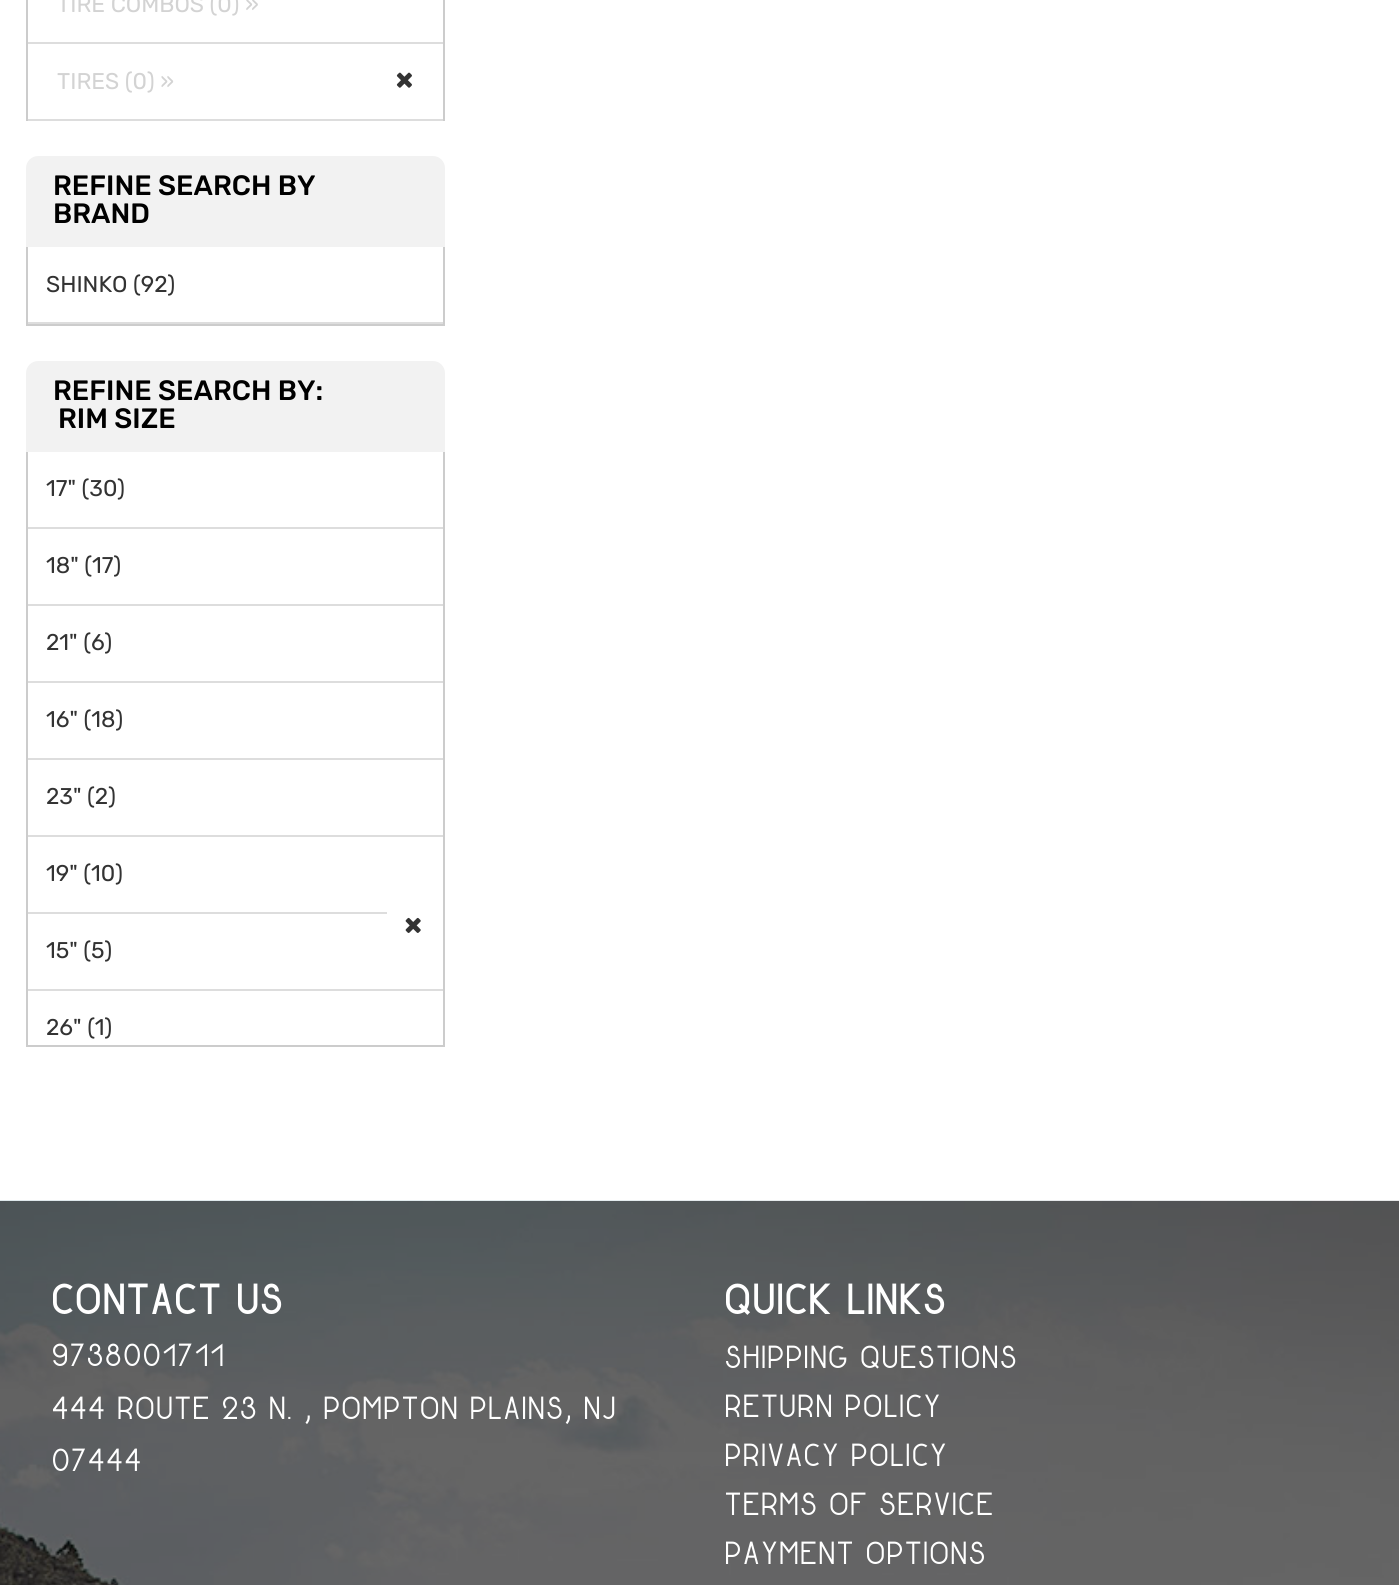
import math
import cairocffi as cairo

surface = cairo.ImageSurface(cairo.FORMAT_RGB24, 1399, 1585)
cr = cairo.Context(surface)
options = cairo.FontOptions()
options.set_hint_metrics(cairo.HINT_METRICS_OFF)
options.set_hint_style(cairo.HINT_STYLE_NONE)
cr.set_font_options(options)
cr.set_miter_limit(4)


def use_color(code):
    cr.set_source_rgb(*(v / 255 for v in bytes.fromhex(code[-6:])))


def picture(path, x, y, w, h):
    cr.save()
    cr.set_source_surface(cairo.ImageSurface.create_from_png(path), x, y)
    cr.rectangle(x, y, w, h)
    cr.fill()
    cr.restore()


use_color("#ffffff")
cr.paint()
use_color("#cccccc")
cr.rectangle(443, 0, 2, 121)
cr.fill()
cr.rectangle(26, 0, 2, 121)
cr.fill()
use_color("#dddddd")
cr.rectangle(28, 42, 415, 2)
cr.fill()
cr.select_font_face("Rubik")
cr.set_font_size(22.75)
use_color("#d3d3d3")
cr.move_to(57, 12)
cr.show_text("TIRE COMBOS (0) »")
use_color("#dddddd")
cr.rectangle(28, 119, 415, 2)
cr.fill()
use_color("#d3d3d3")
cr.move_to(57, 89)
cr.show_text("TIRES (0) »")
picture("img1.png", 396, 72, 16, 16)
use_color("#f2f2f2")
cr.new_path()
cr.move_to(38, 156)
cr.line_to(433, 156)
cr.curve_to(439.5, 156, 445, 161.5, 445, 168)
cr.line_to(445, 247)
cr.line_to(26, 247)
cr.line_to(26, 168)
cr.curve_to(26, 161.5, 31.5, 156, 38, 156)
cr.close_path()
cr.fill()
cr.select_font_face("Rubik Medium")
cr.set_font_size(28)
use_color("#000000")
cr.move_to(53, 195)
cr.show_text("REFINE SEARCH BY")
cr.move_to(53, 223)
cr.show_text("BRAND")
use_color("#cccccc")
cr.rectangle(443, 247, 2, 79)
cr.fill()
cr.rectangle(26, 247, 2, 79)
cr.fill()
cr.rectangle(28, 324, 415, 2)
cr.fill()
use_color("#dddddd")
cr.rectangle(28, 322, 415, 2)
cr.fill()
cr.select_font_face("Rubik")
cr.set_font_size(22.75)
use_color("#333333")
cr.move_to(46, 292)
cr.show_text("SHINKO (92)")
use_color("#f2f2f2")
cr.new_path()
cr.move_to(38, 361)
cr.line_to(433, 361)
cr.curve_to(439.5, 361, 445, 366.5, 445, 373)
cr.line_to(445, 452)
cr.line_to(26, 452)
cr.line_to(26, 373)
cr.curve_to(26, 366.5, 31.5, 361, 38, 361)
cr.close_path()
cr.fill()
cr.select_font_face("Rubik Medium")
cr.set_font_size(28)
use_color("#000000")
cr.move_to(53, 400)
cr.show_text("REFINE SEARCH BY:")
cr.move_to(58, 428)
cr.show_text("RIM SIZE")
use_color("#cccccc")
cr.rectangle(443, 452, 2, 595)
cr.fill()
cr.rectangle(26, 452, 2, 595)
cr.fill()
cr.rectangle(28, 1045, 415, 2)
cr.fill()
use_color("#dddddd")
cr.rectangle(28, 527, 415, 2)
cr.fill()
cr.select_font_face("Rubik")
cr.set_font_size(22.75)
use_color("#333333")
cr.move_to(46, 496)
cr.show_text("17\" (30)")
use_color("#dddddd")
cr.rectangle(28, 604, 415, 2)
cr.fill()
use_color("#333333")
cr.move_to(46, 573)
cr.show_text("18\" (17)")
use_color("#dddddd")
cr.rectangle(28, 681, 415, 2)
cr.fill()
use_color("#333333")
cr.move_to(46, 650)
cr.show_text("21\" (6)")
use_color("#dddddd")
cr.rectangle(28, 758, 415, 2)
cr.fill()
use_color("#333333")
cr.move_to(46, 727)
cr.show_text("16\" (18)")
use_color("#dddddd")
cr.rectangle(28, 835, 415, 2)
cr.fill()
use_color("#333333")
cr.move_to(46, 804)
cr.show_text("23\" (2)")
use_color("#dddddd")
cr.rectangle(28, 912, 359, 2)
cr.fill()
use_color("#333333")
cr.move_to(46, 881)
cr.show_text("19\" (10)")
use_color("#dddddd")
cr.rectangle(28, 989, 415, 2)
cr.fill()
picture("img2.png", 405, 917, 16, 16)
use_color("#333333")
cr.move_to(46, 958)
cr.show_text("15\" (5)")
cr.move_to(46, 1035)
cr.show_text("26\" (1)")
picture("img3.png", 0, 1200, 1399, 385)
cr.select_font_face("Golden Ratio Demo", cairo.FONT_SLANT_NORMAL, cairo.FONT_WEIGHT_BOLD)
cr.set_font_size(36.75)
use_color("#ffffff")
cr.move_to(53, 1314)
cr.show_text("CONTACT US")
cr.select_font_face("Golden Ratio Demo")
cr.set_font_size(28)
cr.move_to(53, 1366)
cr.show_text("9738001711")
cr.move_to(53, 1419)
cr.show_text("444 ROUTE 23 N. , POMPTON PLAINS, NJ")
cr.move_to(53, 1471)
cr.show_text("07444")
cr.select_font_face("Golden Ratio Demo", cairo.FONT_SLANT_NORMAL, cairo.FONT_WEIGHT_BOLD)
cr.set_font_size(36.75)
cr.move_to(726, 1314)
cr.show_text("QUICK LINKS")
cr.select_font_face("Golden Ratio Demo")
cr.set_font_size(28)
cr.move_to(726, 1368)
cr.show_text("SHIPPING QUESTIONS")
cr.move_to(726, 1417)
cr.show_text("RETURN POLICY")
cr.move_to(726, 1466)
cr.show_text("PRIVACY POLICY")
cr.move_to(726, 1515)
cr.show_text("TERMS OF SERVICE")
cr.move_to(726, 1564)
cr.show_text("PAYMENT OPTIONS")
surface.write_to_png("result.png")
